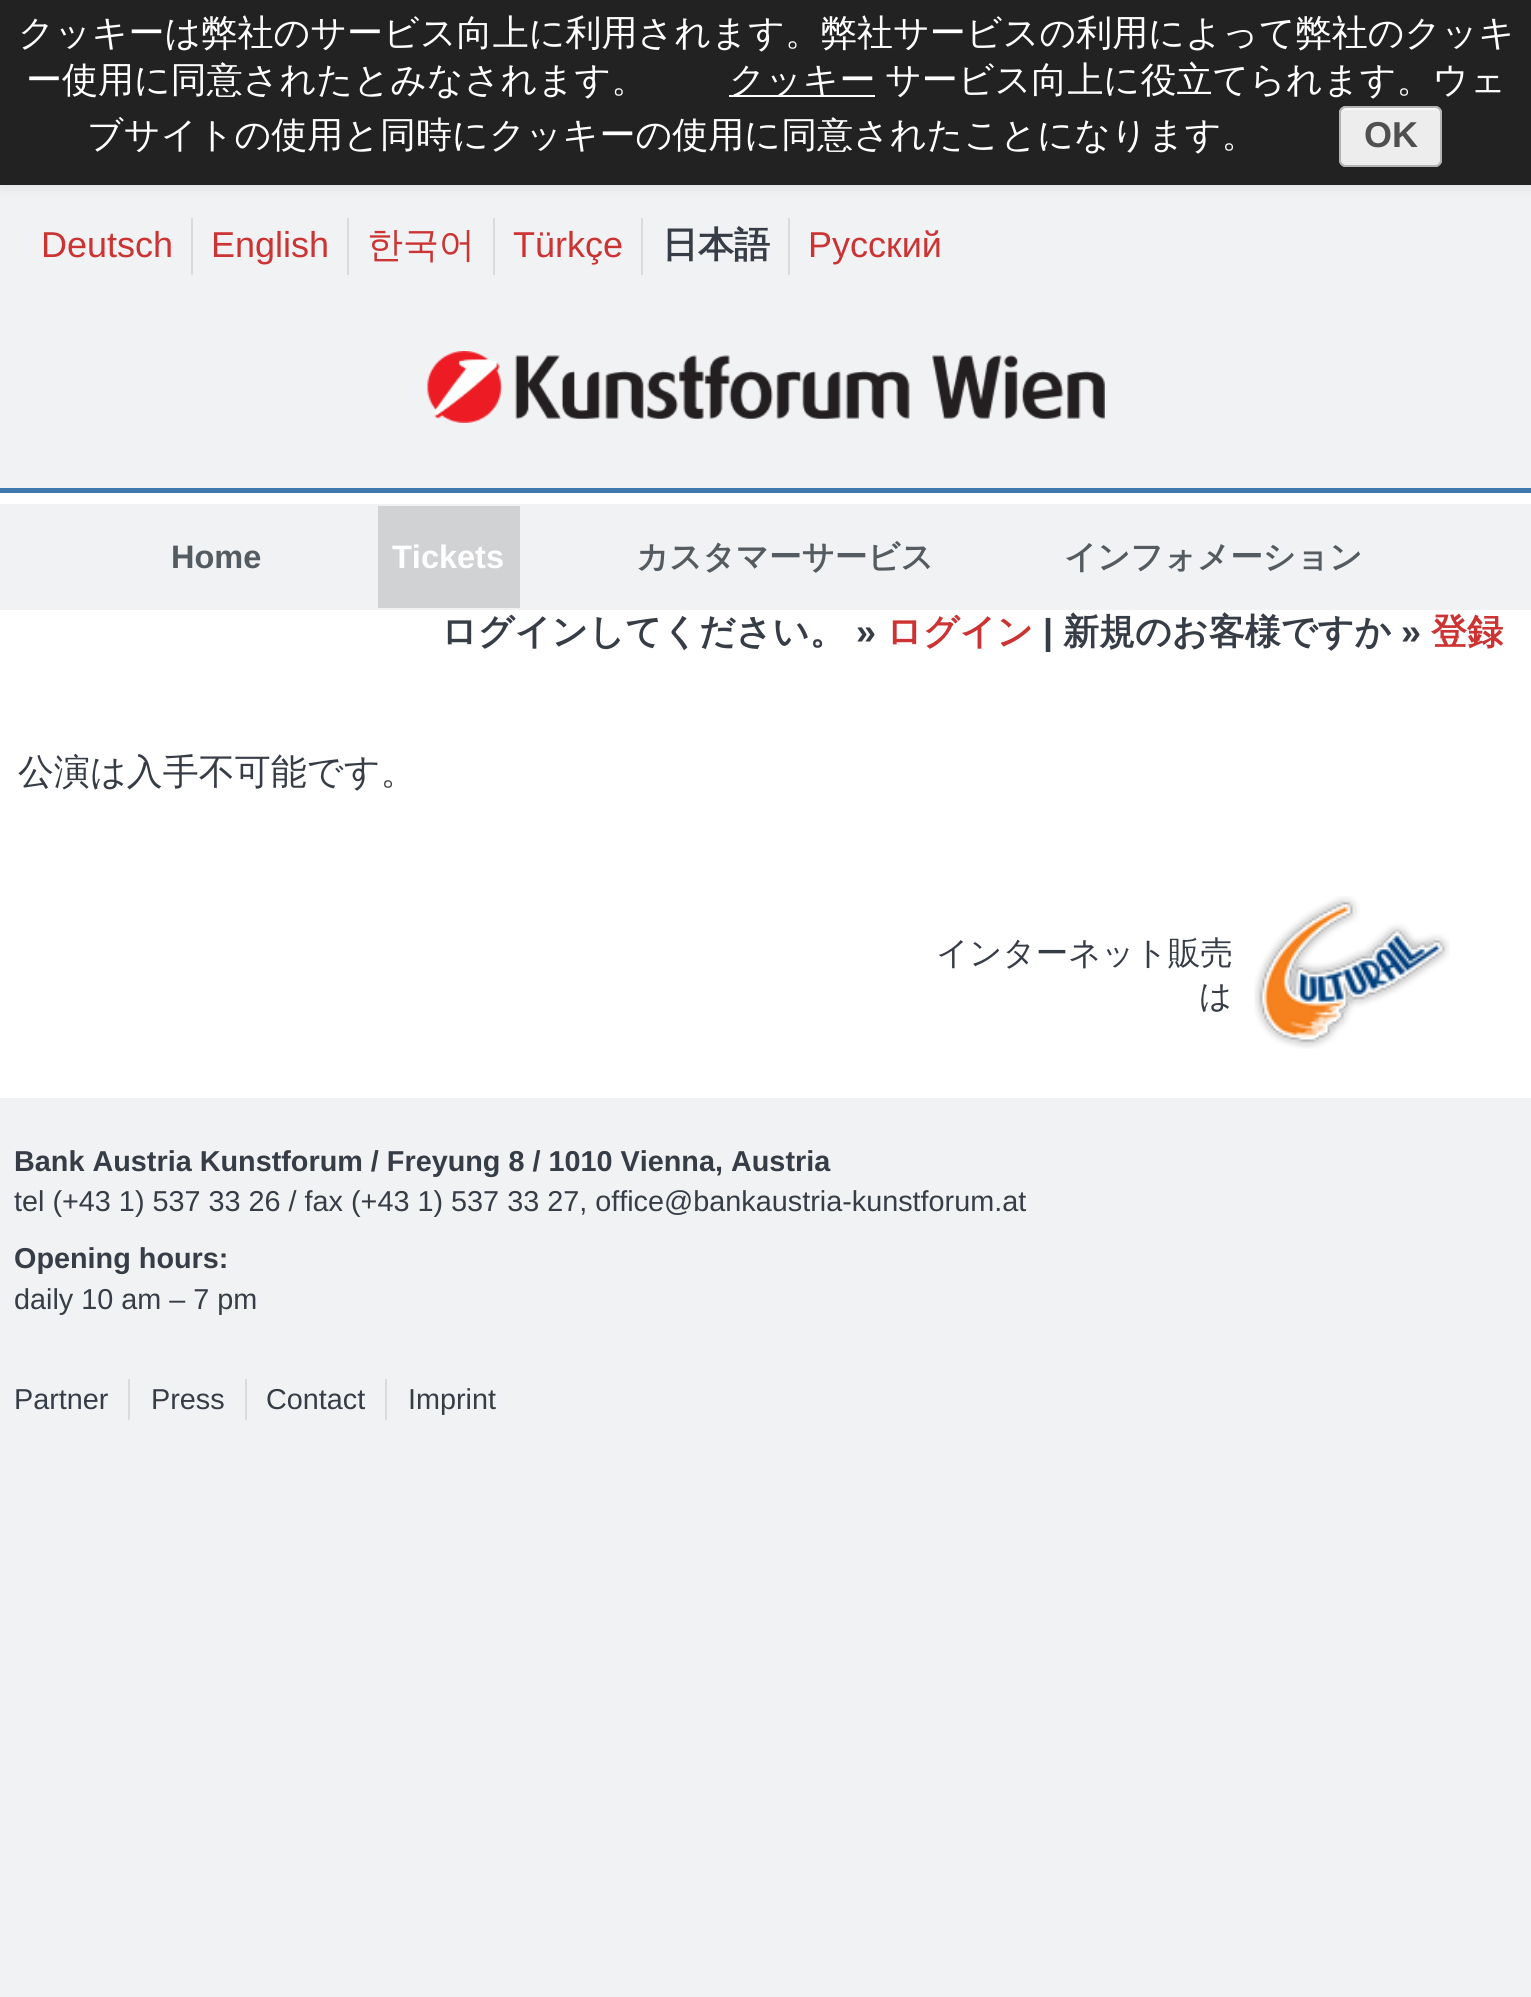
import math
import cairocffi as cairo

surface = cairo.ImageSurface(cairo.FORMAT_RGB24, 1531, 1997)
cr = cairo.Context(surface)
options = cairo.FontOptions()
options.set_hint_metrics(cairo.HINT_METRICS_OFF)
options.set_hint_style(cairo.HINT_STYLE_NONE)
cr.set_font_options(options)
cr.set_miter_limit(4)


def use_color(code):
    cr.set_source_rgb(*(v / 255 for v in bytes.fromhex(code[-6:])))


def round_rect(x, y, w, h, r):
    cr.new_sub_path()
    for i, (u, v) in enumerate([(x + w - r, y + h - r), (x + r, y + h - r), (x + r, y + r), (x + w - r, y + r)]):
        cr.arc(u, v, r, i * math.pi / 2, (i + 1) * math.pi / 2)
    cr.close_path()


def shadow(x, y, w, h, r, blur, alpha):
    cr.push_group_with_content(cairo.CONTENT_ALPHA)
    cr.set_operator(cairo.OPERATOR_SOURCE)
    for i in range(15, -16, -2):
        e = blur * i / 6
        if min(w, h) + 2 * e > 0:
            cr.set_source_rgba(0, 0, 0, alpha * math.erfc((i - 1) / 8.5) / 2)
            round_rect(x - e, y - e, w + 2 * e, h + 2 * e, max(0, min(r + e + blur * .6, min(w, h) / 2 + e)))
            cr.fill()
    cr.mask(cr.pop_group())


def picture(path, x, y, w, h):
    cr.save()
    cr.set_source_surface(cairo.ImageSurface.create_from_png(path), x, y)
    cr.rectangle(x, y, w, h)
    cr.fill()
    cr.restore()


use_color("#f1f2f4")
cr.paint()
use_color("#000000")
shadow(0, 0, 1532, 185, 0, 7, 0.1)
use_color("#222222")
cr.rectangle(0, 0, 1531, 185)
cr.fill()
cr.select_font_face("WenQuanYi Zen Hei Medium")
cr.set_font_size(36)
use_color("#ffffff")
cr.move_to(18, 45)
cr.show_text("クッキーは弊社のサービス向上に利用されます。弊社サービスの利用によって弊社のクッキ")
cr.move_to(26, 92)
cr.show_text("ー使用に同意されたとみなされます。")
cr.rectangle(729, 95, 146, 2)
cr.fill()
cr.move_to(729, 92)
cr.show_text("クッキー")
cr.move_to(885, 92)
cr.show_text("サービス向上に役立てられます。ウェ")
cr.move_to(87, 147)
cr.show_text("ブサイトの使用と同時にクッキーの使用に同意されたことになります。")
use_color("#ededed")
round_rect(1339, 106, 103, 61, 7)
cr.fill()
use_color("#f8f8f8")
cr.new_path()
cr.move_to(1346, 110)
cr.line_to(1436, 110)
cr.curve_to(1438, 110, 1440, 112, 1440, 115)
cr.curve_to(1440, 104, 1429, 108, 1420, 108)
cr.line_to(1361, 108)
cr.curve_to(1352, 108, 1341, 104, 1341, 115)
cr.curve_to(1341, 112, 1343, 110, 1346, 110)
cr.close_path()
cr.fill()
round_rect(1340, 107, 101, 59, 6)
use_color("#b4b4b4")
cr.stroke()
cr.select_font_face("Liberation Sans", cairo.FONT_SLANT_NORMAL, cairo.FONT_WEIGHT_BOLD)
use_color("#4f4f4f")
cr.move_to(1364, 147)
cr.show_text("OK")
cr.select_font_face("Liberation Sans")
use_color("#cc3333")
cr.move_to(41, 257)
cr.show_text("Deutsch")
use_color("#d9dbdf")
cr.rectangle(191, 218, 2, 57)
cr.fill()
use_color("#cc3333")
cr.move_to(211, 257)
cr.show_text("English")
use_color("#d9dbdf")
cr.rectangle(347, 218, 2, 57)
cr.fill()
cr.select_font_face("WenQuanYi Zen Hei Medium")
use_color("#cc3333")
cr.move_to(367, 257)
cr.show_text("한국어")
use_color("#d9dbdf")
cr.rectangle(493, 218, 2, 57)
cr.fill()
cr.select_font_face("Liberation Sans")
use_color("#cc3333")
cr.move_to(513, 257)
cr.show_text("Türkçe")
use_color("#d9dbdf")
cr.rectangle(641, 218, 2, 57)
cr.fill()
cr.select_font_face("WenQuanYi Zen Hei", cairo.FONT_SLANT_NORMAL, cairo.FONT_WEIGHT_BOLD)
use_color("#373d46")
cr.move_to(662, 257)
cr.show_text("日本語")
use_color("#d9dbdf")
cr.rectangle(788, 218, 2, 57)
cr.fill()
cr.select_font_face("Liberation Sans")
use_color("#cc3333")
cr.move_to(808, 257)
cr.show_text("Русский")
picture("img1.png", 427, 351, 678, 72)
use_color("#ffffff")
cr.rectangle(0, 610, 1531, 488)
cr.fill()
use_color("#3f78af")
cr.rectangle(0, 488, 1531, 5)
cr.fill()
use_color("#ffffff")
cr.rectangle(0, 493, 1531, 11)
cr.fill()
cr.select_font_face("Liberation Sans", cairo.FONT_SLANT_NORMAL, cairo.FONT_WEIGHT_BOLD)
cr.set_font_size(32.5)
use_color("#545b61")
cr.move_to(171, 568)
cr.show_text("Home")
use_color("#d1d2d4")
cr.rectangle(378, 506, 142, 102)
cr.fill()
use_color("#ffffff")
cr.move_to(392, 568)
cr.show_text("Tickets")
cr.select_font_face("WenQuanYi Zen Hei", cairo.FONT_SLANT_NORMAL, cairo.FONT_WEIGHT_BOLD)
use_color("#545b61")
cr.move_to(636, 568)
cr.show_text("カスタマーサービス")
cr.move_to(1064, 568)
cr.show_text("インフォメーション")
cr.set_font_size(36)
use_color("#373d46")
cr.move_to(441, 644)
cr.show_text("ログインしてください。")
cr.select_font_face("Liberation Sans", cairo.FONT_SLANT_NORMAL, cairo.FONT_WEIGHT_BOLD)
cr.move_to(856, 644)
cr.show_text("»")
cr.select_font_face("WenQuanYi Zen Hei", cairo.FONT_SLANT_NORMAL, cairo.FONT_WEIGHT_BOLD)
use_color("#cc3333")
cr.move_to(886, 644)
cr.show_text("ログイン")
cr.select_font_face("Liberation Sans", cairo.FONT_SLANT_NORMAL, cairo.FONT_WEIGHT_BOLD)
use_color("#373d46")
cr.move_to(1043, 644)
cr.show_text("|")
cr.select_font_face("WenQuanYi Zen Hei", cairo.FONT_SLANT_NORMAL, cairo.FONT_WEIGHT_BOLD)
cr.move_to(1063, 644)
cr.show_text("新規のお客様ですか")
cr.select_font_face("Liberation Sans", cairo.FONT_SLANT_NORMAL, cairo.FONT_WEIGHT_BOLD)
cr.move_to(1401, 644)
cr.show_text("»")
cr.select_font_face("WenQuanYi Zen Hei", cairo.FONT_SLANT_NORMAL, cairo.FONT_WEIGHT_BOLD)
use_color("#cc3333")
cr.move_to(1431, 644)
cr.show_text("登録")
cr.select_font_face("WenQuanYi Zen Hei Medium")
use_color("#373d46")
cr.move_to(18, 784)
cr.show_text("公演は入手不可能です。")
cr.set_font_size(32.5)
cr.move_to(936, 964)
cr.show_text("インターネット販売")
cr.move_to(1199, 1007)
cr.show_text("は")
picture("img2.png", 1254, 896, 196, 153)
cr.select_font_face("Liberation Sans", cairo.FONT_SLANT_NORMAL, cairo.FONT_WEIGHT_BOLD)
cr.set_font_size(28.8)
cr.move_to(14, 1171)
cr.show_text("Bank Austria Kunstforum / Freyung 8 / 1010 Vienna, Austria")
cr.select_font_face("Liberation Sans")
cr.move_to(14, 1211)
cr.show_text("tel (+43 1) 537 33 26 / fax (+43 1) 537 33 27, office@bankaustria-kunstforum.at")
cr.select_font_face("Liberation Sans", cairo.FONT_SLANT_NORMAL, cairo.FONT_WEIGHT_BOLD)
cr.move_to(14, 1268)
cr.show_text("Opening hours:")
cr.select_font_face("Liberation Sans")
cr.move_to(14, 1309)
cr.show_text("daily 10 am – 7 pm")
cr.move_to(14, 1409)
cr.show_text("Partner")
use_color("#d9dbdf")
cr.rectangle(128, 1379, 2, 41)
cr.fill()
use_color("#373d46")
cr.move_to(151, 1409)
cr.show_text("Press")
use_color("#d9dbdf")
cr.rectangle(245, 1379, 2, 41)
cr.fill()
use_color("#373d46")
cr.move_to(266, 1409)
cr.show_text("Contact")
use_color("#d9dbdf")
cr.rectangle(385, 1379, 2, 41)
cr.fill()
use_color("#373d46")
cr.move_to(408, 1409)
cr.show_text("Imprint")
surface.write_to_png("result.png")
